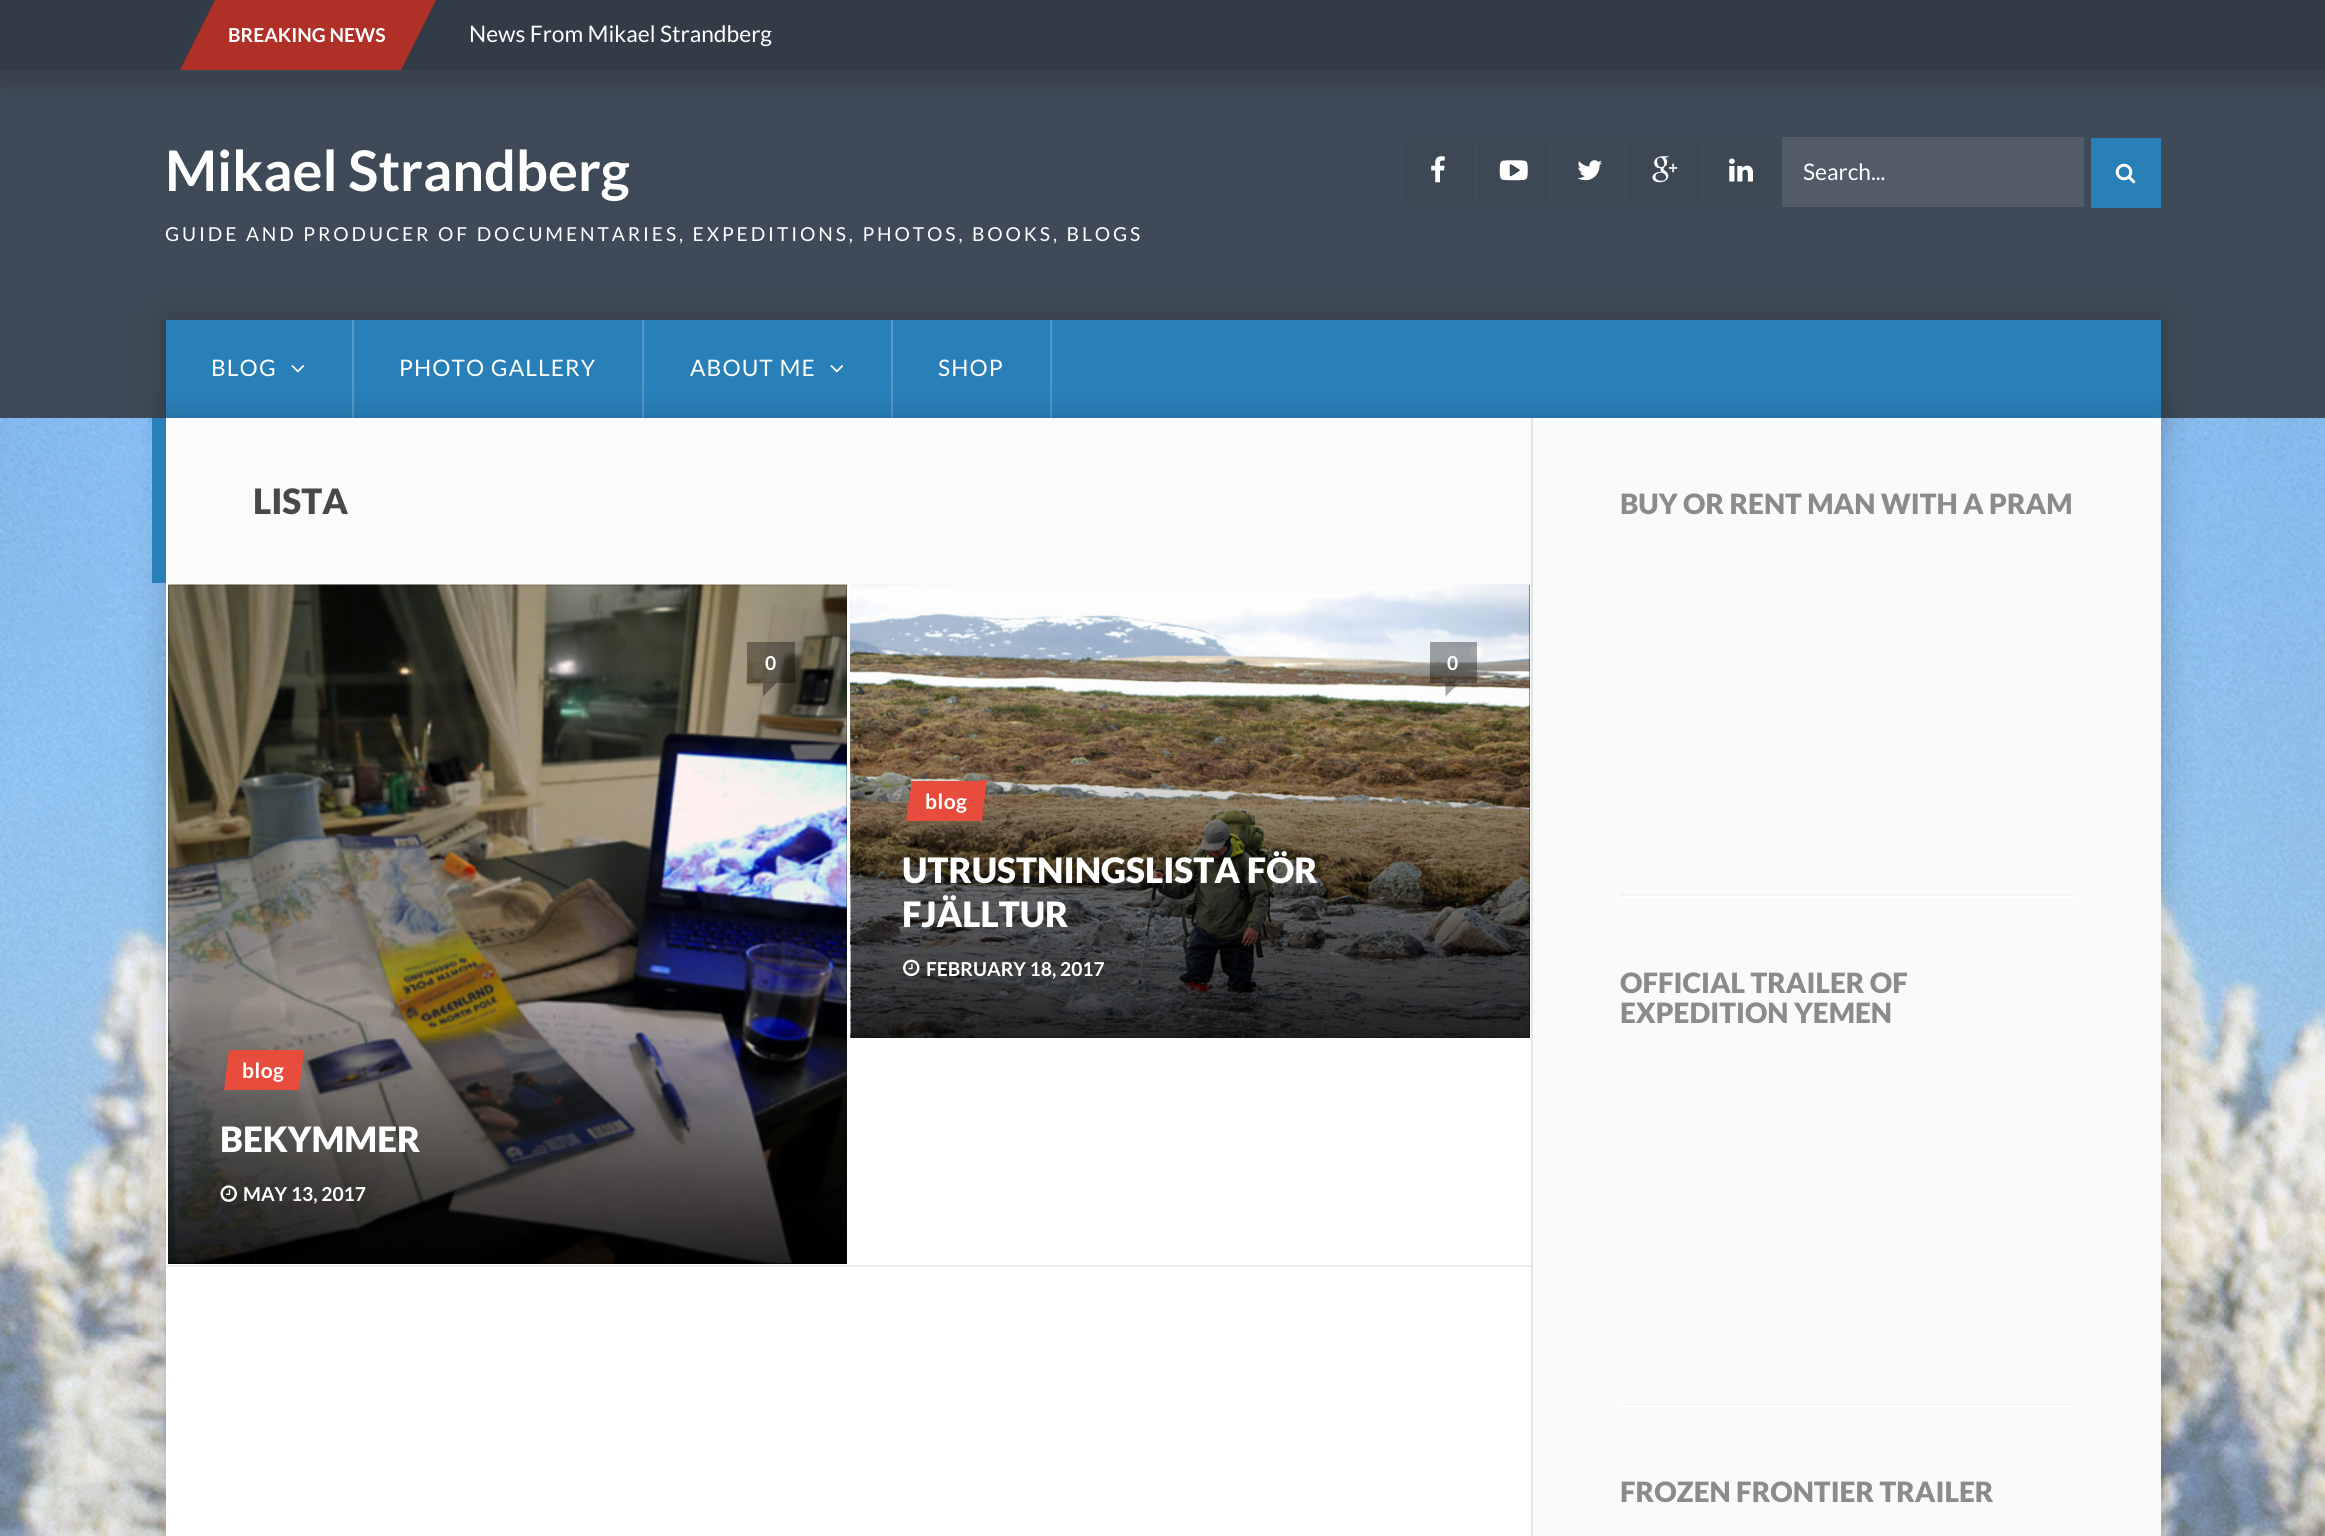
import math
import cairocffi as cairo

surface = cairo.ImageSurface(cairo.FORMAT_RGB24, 2325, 1536)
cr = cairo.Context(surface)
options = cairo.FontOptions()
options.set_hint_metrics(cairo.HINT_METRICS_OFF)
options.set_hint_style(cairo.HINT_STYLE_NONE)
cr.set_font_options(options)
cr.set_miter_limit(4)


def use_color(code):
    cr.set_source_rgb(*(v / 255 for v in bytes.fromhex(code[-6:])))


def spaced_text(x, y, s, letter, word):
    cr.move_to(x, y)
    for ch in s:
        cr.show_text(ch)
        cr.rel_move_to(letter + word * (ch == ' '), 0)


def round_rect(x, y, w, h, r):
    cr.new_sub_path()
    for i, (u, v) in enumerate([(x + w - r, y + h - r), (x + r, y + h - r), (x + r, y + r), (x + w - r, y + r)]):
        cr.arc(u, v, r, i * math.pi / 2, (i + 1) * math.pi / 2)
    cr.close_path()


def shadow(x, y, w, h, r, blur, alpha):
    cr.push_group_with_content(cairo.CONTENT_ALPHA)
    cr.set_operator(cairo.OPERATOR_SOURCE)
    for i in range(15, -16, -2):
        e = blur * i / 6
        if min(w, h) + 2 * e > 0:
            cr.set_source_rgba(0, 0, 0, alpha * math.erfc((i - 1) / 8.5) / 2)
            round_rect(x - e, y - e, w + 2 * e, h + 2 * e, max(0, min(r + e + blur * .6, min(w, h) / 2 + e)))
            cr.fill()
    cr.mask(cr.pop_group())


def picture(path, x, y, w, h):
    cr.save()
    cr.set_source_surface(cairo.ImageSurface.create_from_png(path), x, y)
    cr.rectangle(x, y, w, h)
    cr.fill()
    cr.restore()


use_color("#ffffff")
cr.paint()
picture("img1.png", 0, 418, 2325, 1118)
use_color("#3e4a57")
cr.rectangle(0, 0, 2325, 418)
cr.fill()
cr.save()
cr.rectangle(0, 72, 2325, 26)
cr.clip()
use_color("#000000")
shadow(0, 4, 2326, 71, 0, 17.5, 0.22)
cr.restore()
cr.set_source_rgba(0, 0, 0, 0.2)
cr.rectangle(0, 0, 2325, 70)
cr.fill()
use_color("#3b444e")
cr.rectangle(0, 70, 2325, 2)
cr.fill()
use_color("#b03027")
cr.rectangle(215, 0, 186, 70)
cr.fill()
cr.new_path()
cr.move_to(215, 70)
cr.line_to(180, 70)
cr.line_to(215, 0)
cr.close_path()
cr.fill()
cr.select_font_face("Lato", cairo.FONT_SLANT_NORMAL, cairo.FONT_WEIGHT_BOLD)
cr.set_font_size(19.25)
use_color("#ffffff")
cr.move_to(228, 42)
cr.show_text("BREAKING NEWS")
use_color("#b03027")
cr.new_path()
cr.move_to(401, 0)
cr.line_to(436, 0)
cr.line_to(401, 70)
cr.close_path()
cr.fill()
cr.select_font_face("Lato")
cr.set_font_size(22.75)
use_color("#ffffff")
cr.move_to(469, 42)
cr.show_text("News From Mikael Strandberg")
cr.select_font_face("Lato", cairo.FONT_SLANT_NORMAL, cairo.FONT_WEIGHT_BOLD)
cr.set_font_size(56)
cr.move_to(165, 191)
cr.show_text("Mikael Strandberg")
cr.select_font_face("Lato")
cr.set_font_size(19.25)
spaced_text(165, 241, "GUIDE AND PRODUCER OF DOCUMENTARIES, EXPEDITIONS, PHOTOS, BOOKS, BLOGS", 2.9, 0)
use_color("#3c4854")
cr.rectangle(1404, 137, 70, 70)
cr.fill()
picture("img2.png", 1431, 156, 14, 27)
cr.rectangle(1479, 137, 70, 70)
cr.fill()
picture("img3.png", 1499, 160, 29, 21)
cr.rectangle(1554, 137, 70, 70)
cr.fill()
picture("img4.png", 1577, 160, 25, 21)
cr.rectangle(1629, 137, 70, 70)
cr.fill()
picture("img5.png", 1652, 156, 26, 27)
cr.rectangle(1705, 137, 70, 70)
cr.fill()
picture("img6.png", 1729, 158, 24, 24)
use_color("#515c68")
cr.rectangle(1782, 137, 302, 70)
cr.fill()
cr.set_font_size(22.75)
use_color("#ffffff")
cr.move_to(1803, 180)
cr.show_text("Search...")
use_color("#2980b9")
cr.rectangle(2091, 138, 70, 70)
cr.fill()
picture("img7.png", 2115, 163, 21, 21)
use_color("#000000")
shadow(166, 320, 1995, 98, 0, 16.5, 0.2)
use_color("#2980b9")
cr.rectangle(166, 320, 1995, 98)
cr.fill()
use_color("#5499c7")
cr.rectangle(352, 320, 2, 98)
cr.fill()
use_color("#ffffff")
spaced_text(211, 376, "BLOG", 1.1, 0)
picture("img8.png", 291, 365, 14, 8)
use_color("#5499c7")
cr.rectangle(642, 320, 2, 98)
cr.fill()
use_color("#ffffff")
spaced_text(399, 376, "PHOTO GALLERY", 1.1, 0)
use_color("#5499c7")
cr.rectangle(891, 320, 2, 98)
cr.fill()
use_color("#ffffff")
spaced_text(690, 376, "ABOUT ME", 1.1, 0)
picture("img8.png", 830, 365, 14, 8)
use_color("#5499c7")
cr.rectangle(1050, 320, 2, 98)
cr.fill()
use_color("#ffffff")
spaced_text(938, 376, "SHOP", 1.1, 0)
use_color("#000000")
shadow(166, 418, 1995, 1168, 0, 16.5, 0.2)
use_color("#ffffff")
cr.rectangle(166, 583, 1365, 953)
cr.fill()
use_color("#fbfbfc")
cr.rectangle(166, 418, 1365, 165)
cr.fill()
use_color("#2980b9")
cr.rectangle(152, 418, 14, 165)
cr.fill()
cr.select_font_face("Lato Black")
cr.set_font_size(35)
use_color("#494848")
cr.move_to(253, 514)
cr.show_text("LISTA")
use_color("#eeeeee")
cr.rectangle(166, 1265, 1365, 2)
cr.fill()
use_color("#111111")
cr.rectangle(168, 585, 679, 679)
cr.fill()
picture("img9.png", 168, 584, 679, 680)
cr.set_source_rgba(0, 0, 0, 0.35)
cr.rectangle(747, 642, 48, 41)
cr.fill()
cr.select_font_face("Lato", cairo.FONT_SLANT_NORMAL, cairo.FONT_WEIGHT_BOLD)
cr.set_font_size(19.25)
use_color("#ffffff")
cr.move_to(765, 670)
cr.show_text("0")
cr.set_source_rgba(0, 0, 0, 0.35)
cr.new_path()
cr.move_to(763, 682.5)
cr.line_to(777, 682.5)
cr.line_to(763, 696.5)
cr.close_path()
cr.fill()
gradient = cairo.LinearGradient(508, 998, 508, 1264)
gradient.add_color_stop_rgba(0, 0, 0, 0, 0)
gradient.add_color_stop_rgba(1, 0, 0, 0, 0.8)
cr.set_source(gradient)
cr.rectangle(168, 1005, 679, 259)
cr.fill()
use_color("#e74c3c")
cr.rectangle(229, 1050, 70, 40)
cr.fill()
cr.new_path()
cr.move_to(229, 1090)
cr.line_to(224, 1090)
cr.line_to(229, 1050)
cr.close_path()
cr.fill()
cr.set_font_size(21)
use_color("#ffffff")
spaced_text(242, 1078, "blog", 0.5, 0)
use_color("#e74c3c")
cr.new_path()
cr.move_to(299, 1050)
cr.line_to(304, 1050)
cr.line_to(299, 1090)
cr.close_path()
cr.fill()
cr.select_font_face("Lato Black")
cr.set_font_size(35)
use_color("#ffffff")
cr.move_to(220, 1152)
cr.show_text("BEKYMMER")
picture("img10.png", 220, 1185, 17, 17)
cr.select_font_face("Lato", cairo.FONT_SLANT_NORMAL, cairo.FONT_WEIGHT_BOLD)
cr.set_font_size(19.25)
cr.move_to(243, 1201)
cr.show_text("MAY 13, 2017")
use_color("#111111")
cr.rectangle(851, 585, 679, 453)
cr.fill()
picture("img11.png", 850, 584, 680, 454)
cr.set_source_rgba(0, 0, 0, 0.35)
cr.rectangle(1430, 642, 47, 41)
cr.fill()
use_color("#ffffff")
cr.move_to(1447, 670)
cr.show_text("0")
cr.set_source_rgba(0, 0, 0, 0.35)
cr.new_path()
cr.move_to(1445.5, 682.5)
cr.line_to(1459.5, 682.5)
cr.line_to(1445.5, 696.5)
cr.close_path()
cr.fill()
gradient = cairo.LinearGradient(1190, 728, 1190, 1038)
gradient.add_color_stop_rgba(0, 0, 0, 0, 0)
gradient.add_color_stop_rgba(1, 0, 0, 0, 0.8)
cr.set_source(gradient)
cr.rectangle(851, 736, 679, 302)
cr.fill()
use_color("#e74c3c")
cr.rectangle(912, 781, 70, 40)
cr.fill()
cr.new_path()
cr.move_to(912, 821)
cr.line_to(906, 821)
cr.line_to(912, 780)
cr.close_path()
cr.fill()
cr.set_font_size(21)
use_color("#ffffff")
spaced_text(925, 809, "blog", 0.5, 0)
use_color("#e74c3c")
cr.new_path()
cr.move_to(982, 780)
cr.line_to(987, 780)
cr.line_to(982, 821)
cr.close_path()
cr.fill()
cr.select_font_face("Lato Black")
cr.set_font_size(35)
use_color("#ffffff")
cr.move_to(902, 883)
cr.show_text("UTRUSTNINGSLISTA FÖR")
cr.move_to(902, 927)
cr.show_text("FJÄLLTUR")
picture("img12.png", 903, 959, 17, 18)
cr.select_font_face("Lato", cairo.FONT_SLANT_NORMAL, cairo.FONT_WEIGHT_BOLD)
cr.set_font_size(19.25)
cr.move_to(926, 976)
cr.show_text("FEBRUARY 18, 2017")
use_color("#f9fafa")
cr.rectangle(1533, 418, 628, 1118)
cr.fill()
use_color("#e3e4e4")
cr.rectangle(1531, 418, 2, 1118)
cr.fill()
use_color("#f2f2f2")
cr.rectangle(1621, 894, 453, 2)
cr.fill()
cr.select_font_face("Lato Black")
cr.set_font_size(28)
use_color("#8b8b8b")
cr.move_to(1620, 514)
cr.show_text("BUY OR RENT MAN WITH A PRAM")
use_color("#ffffff")
cr.rectangle(1621, 896, 453, 2)
cr.fill()
use_color("#f2f2f2")
cr.rectangle(1621, 1404, 453, 1)
cr.fill()
use_color("#8b8b8b")
cr.move_to(1620, 993)
cr.show_text("OFFICIAL TRAILER OF")
cr.move_to(1620, 1023)
cr.show_text("EXPEDITION YEMEN")
use_color("#ffffff")
cr.rectangle(1621, 1405, 453, 2)
cr.fill()
use_color("#8b8b8b")
cr.move_to(1620, 1502)
cr.show_text("FROZEN FRONTIER TRAILER")
surface.write_to_png("result.png")
